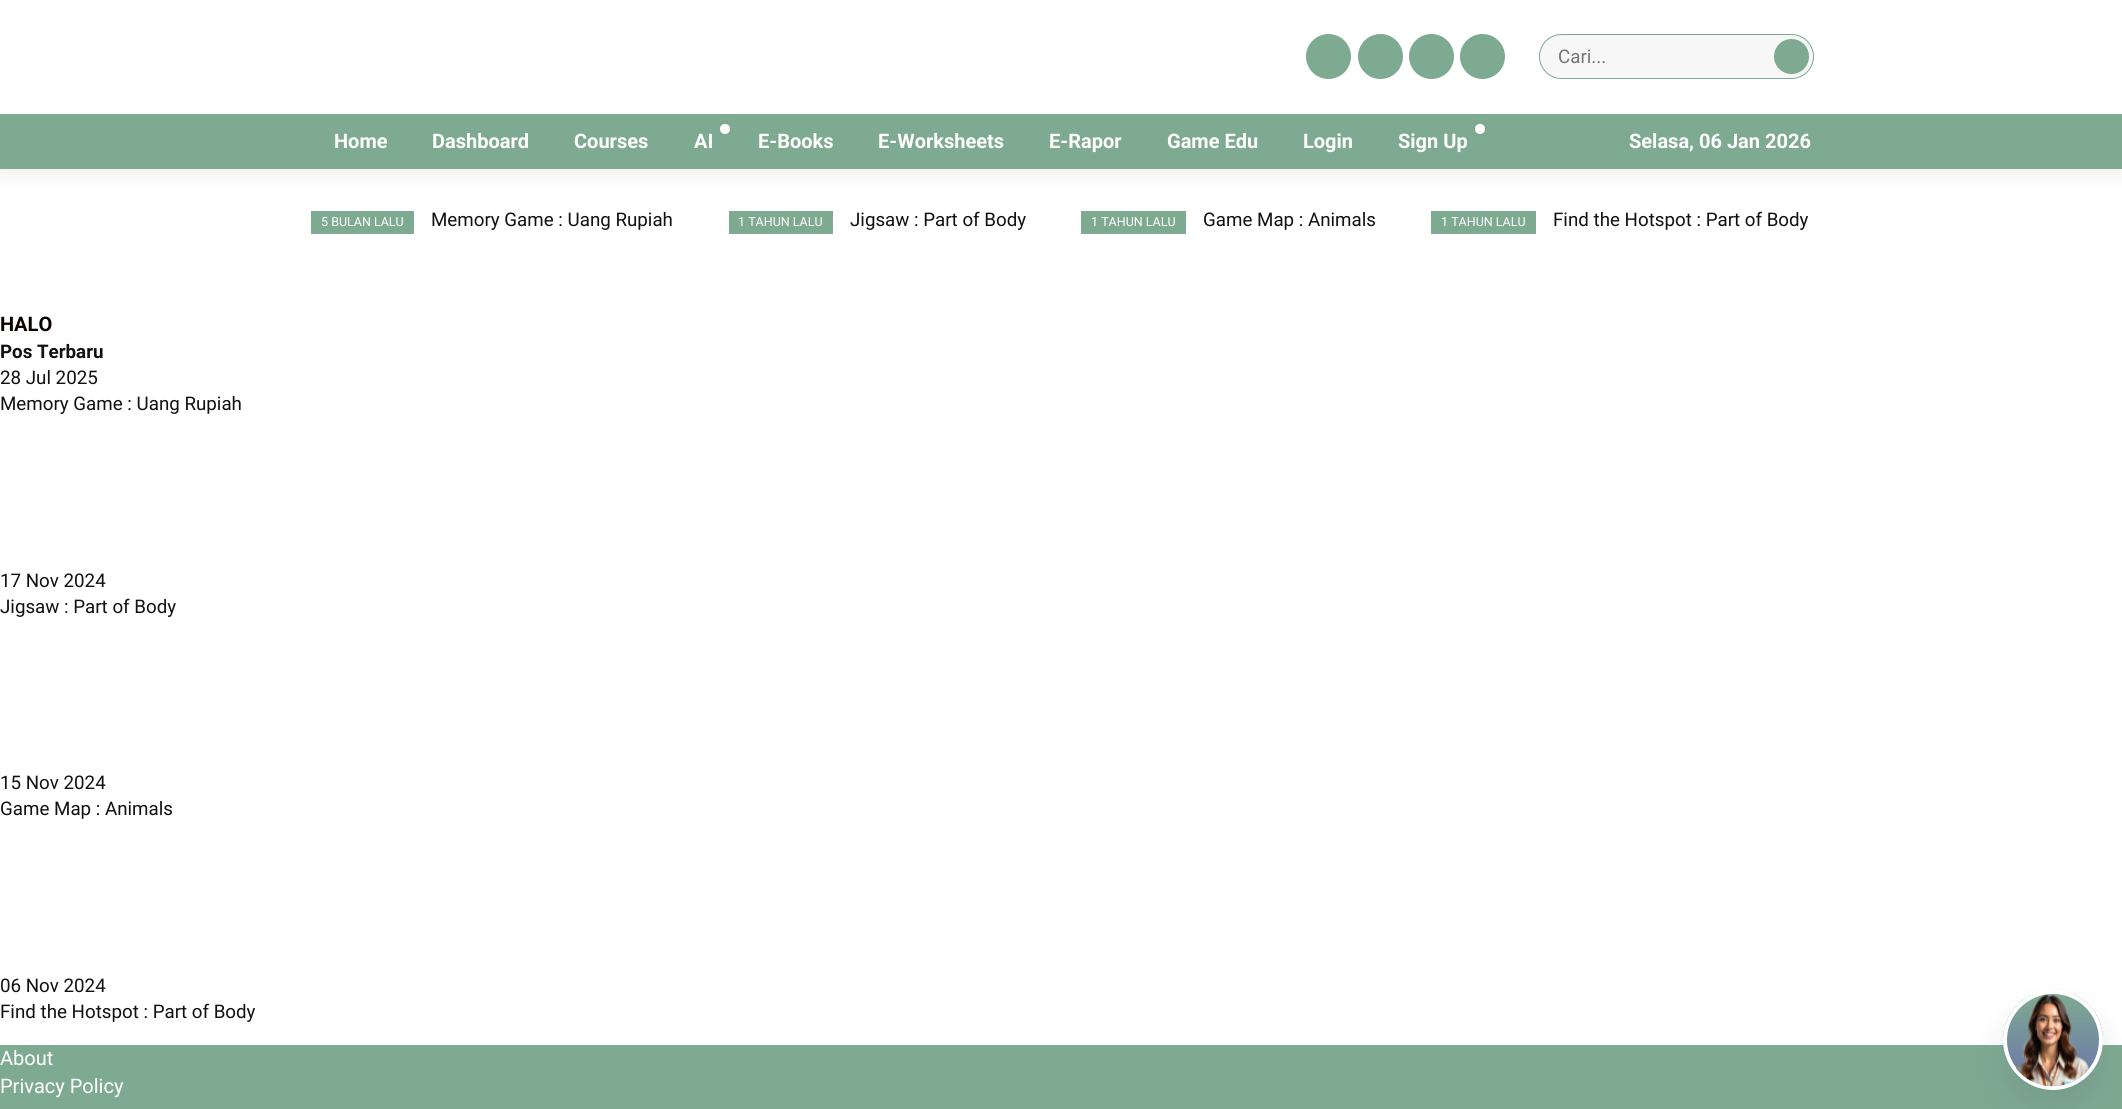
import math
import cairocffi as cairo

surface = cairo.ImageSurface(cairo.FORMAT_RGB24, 2122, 1109)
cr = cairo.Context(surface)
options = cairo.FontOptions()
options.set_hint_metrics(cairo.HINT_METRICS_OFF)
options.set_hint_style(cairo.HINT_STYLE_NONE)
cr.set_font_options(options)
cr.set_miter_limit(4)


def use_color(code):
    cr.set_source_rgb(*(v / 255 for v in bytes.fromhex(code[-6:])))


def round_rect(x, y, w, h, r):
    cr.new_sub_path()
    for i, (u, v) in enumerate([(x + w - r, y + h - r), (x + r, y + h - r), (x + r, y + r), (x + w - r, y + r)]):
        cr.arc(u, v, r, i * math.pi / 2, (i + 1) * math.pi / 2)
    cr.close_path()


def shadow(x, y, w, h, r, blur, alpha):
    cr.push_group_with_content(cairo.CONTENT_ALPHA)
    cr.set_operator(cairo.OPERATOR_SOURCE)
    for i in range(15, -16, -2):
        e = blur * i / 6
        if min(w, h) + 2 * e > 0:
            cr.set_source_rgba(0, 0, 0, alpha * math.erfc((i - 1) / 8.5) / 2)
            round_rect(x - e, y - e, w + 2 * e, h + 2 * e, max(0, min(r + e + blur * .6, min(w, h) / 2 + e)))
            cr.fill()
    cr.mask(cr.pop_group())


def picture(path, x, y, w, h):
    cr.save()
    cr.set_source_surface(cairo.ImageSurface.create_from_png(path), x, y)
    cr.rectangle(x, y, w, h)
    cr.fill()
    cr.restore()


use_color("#ffffff")
cr.paint()
use_color("#000000")
shadow(0, 0, 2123, 169, 0, 12.5, 0.1)
use_color("#ffffff")
cr.rectangle(0, 0, 2122, 114)
cr.fill()
use_color("#7eaa92")
cr.arc(1328.5, 56.5, 22.5, 0, 2 * math.pi)
cr.fill()
cr.arc(1380.5, 56.5, 22.5, 0, 2 * math.pi)
cr.fill()
cr.arc(1431.5, 56.5, 22.5, 0, 2 * math.pi)
cr.fill()
cr.arc(1482.5, 56.5, 22.5, 0, 2 * math.pi)
cr.fill()
use_color("#f7f7f7")
round_rect(1539.5, 34.5, 274, 44, 22)
cr.fill_preserve()
use_color("#7eaa92")
cr.set_line_width(1)
cr.stroke()
use_color("#f7f7f7")
cr.rectangle(1558, 77, 3, 1)
cr.fill()
cr.select_font_face("Roboto")
cr.set_font_size(18.75)
use_color("#757575")
cr.move_to(1558, 63)
cr.show_text("Cari...")
use_color("#7eaa92")
cr.new_path()
cr.arc(1791.5, 56.5, 17.5, 0, 2 * math.pi)
cr.fill()
cr.rectangle(0, 114, 2122, 55)
cr.fill()
cr.select_font_face("Roboto", cairo.FONT_SLANT_NORMAL, cairo.FONT_WEIGHT_BOLD)
cr.set_font_size(20)
use_color("#ffffff")
cr.move_to(334, 148)
cr.show_text("Home")
cr.move_to(432, 148)
cr.show_text("Dashboard")
cr.move_to(574, 148)
cr.show_text("Courses")
cr.new_path()
cr.arc(725, 129, 5, 0, 2 * math.pi)
cr.fill()
cr.move_to(694, 148)
cr.show_text("AI")
cr.move_to(758, 148)
cr.show_text("E-Books")
cr.move_to(878, 148)
cr.show_text("E-Worksheets")
cr.move_to(1049, 148)
cr.show_text("E-Rapor")
cr.move_to(1167, 148)
cr.show_text("Game Edu")
cr.move_to(1303, 148)
cr.show_text("Login")
cr.new_path()
cr.arc(1480, 129, 5, 0, 2 * math.pi)
cr.fill()
cr.move_to(1398, 148)
cr.show_text("Sign Up")
cr.move_to(1629, 148)
cr.show_text("Selasa, 06 Jan 2026")
use_color("#7eaa92")
cr.rectangle(311, 211, 103, 23)
cr.fill()
cr.select_font_face("Roboto")
cr.set_font_size(12.5)
use_color("#ffffff")
cr.move_to(321, 226)
cr.show_text("5 BULAN LALU")
cr.set_font_size(18.75)
use_color("#111111")
cr.move_to(431, 226)
cr.show_text("Memory Game : Uang Rupiah")
use_color("#7eaa92")
cr.rectangle(729, 211, 104, 23)
cr.fill()
cr.set_font_size(12.5)
use_color("#ffffff")
cr.move_to(738, 226)
cr.show_text("1 TAHUN LALU")
cr.set_font_size(18.75)
use_color("#111111")
cr.move_to(850, 226)
cr.show_text("Jigsaw : Part of Body")
use_color("#7eaa92")
cr.rectangle(1081, 211, 105, 23)
cr.fill()
cr.set_font_size(12.5)
use_color("#ffffff")
cr.move_to(1091, 226)
cr.show_text("1 TAHUN LALU")
cr.set_font_size(18.75)
use_color("#111111")
cr.move_to(1203, 226)
cr.show_text("Game Map : Animals")
use_color("#7eaa92")
cr.rectangle(1431, 211, 105, 23)
cr.fill()
cr.set_font_size(12.5)
use_color("#ffffff")
cr.move_to(1441, 226)
cr.show_text("1 TAHUN LALU")
cr.set_font_size(18.75)
use_color("#111111")
cr.move_to(1553, 226)
cr.show_text("Find the Hotspot : Part of Body")
cr.select_font_face("Roboto", cairo.FONT_SLANT_NORMAL, cairo.FONT_WEIGHT_BOLD)
cr.set_font_size(20)
use_color("#0a0000")
cr.move_to(0, 331)
cr.show_text("HALO")
cr.set_font_size(18.75)
use_color("#111111")
cr.move_to(0, 358)
cr.show_text("Pos Terbaru")
cr.select_font_face("Roboto")
cr.move_to(0, 384)
cr.show_text("28 Jul 2025")
cr.move_to(0, 410)
cr.show_text("Memory Game : Uang Rupiah")
cr.move_to(0, 587)
cr.show_text("17 Nov 2024")
cr.move_to(0, 613)
cr.show_text("Jigsaw : Part of Body")
cr.move_to(0, 789)
cr.show_text("15 Nov 2024")
cr.move_to(0, 815)
cr.show_text("Game Map : Animals")
cr.move_to(0, 992)
cr.show_text("06 Nov 2024")
cr.move_to(0, 1018)
cr.show_text("Find the Hotspot : Part of Body")
use_color("#7eaa92")
cr.rectangle(0, 1045, 2122, 64)
cr.fill()
cr.set_font_size(20)
use_color("#ffffff")
cr.move_to(0, 1065)
cr.show_text("About")
cr.move_to(0, 1093)
cr.show_text("Privacy Policy")
use_color("#545f6f")
shadow(2003, 1010, 100, 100, 50, 15, 0.16)
cr.save()
round_rect(2003, 990, 100, 100, 50)
cr.clip()
gradient = cairo.LinearGradient(2053, 994, 2053, 1086)
gradient.add_color_stop_rgba(0, 0.494, 0.667, 0.573, 1)
gradient.add_color_stop_rgba(1, 0.424, 0.451, 0.659, 1)
cr.set_source(gradient)
cr.rectangle(2003, 994, 100, 92)
cr.fill()
cr.restore()
cr.arc(2053, 1040, 48, 0, 2 * math.pi)
use_color("#ffffff")
cr.set_line_width(4)
cr.stroke()
picture("img1.png", 2016, 994, 73, 93)
surface.write_to_png("result.png")
